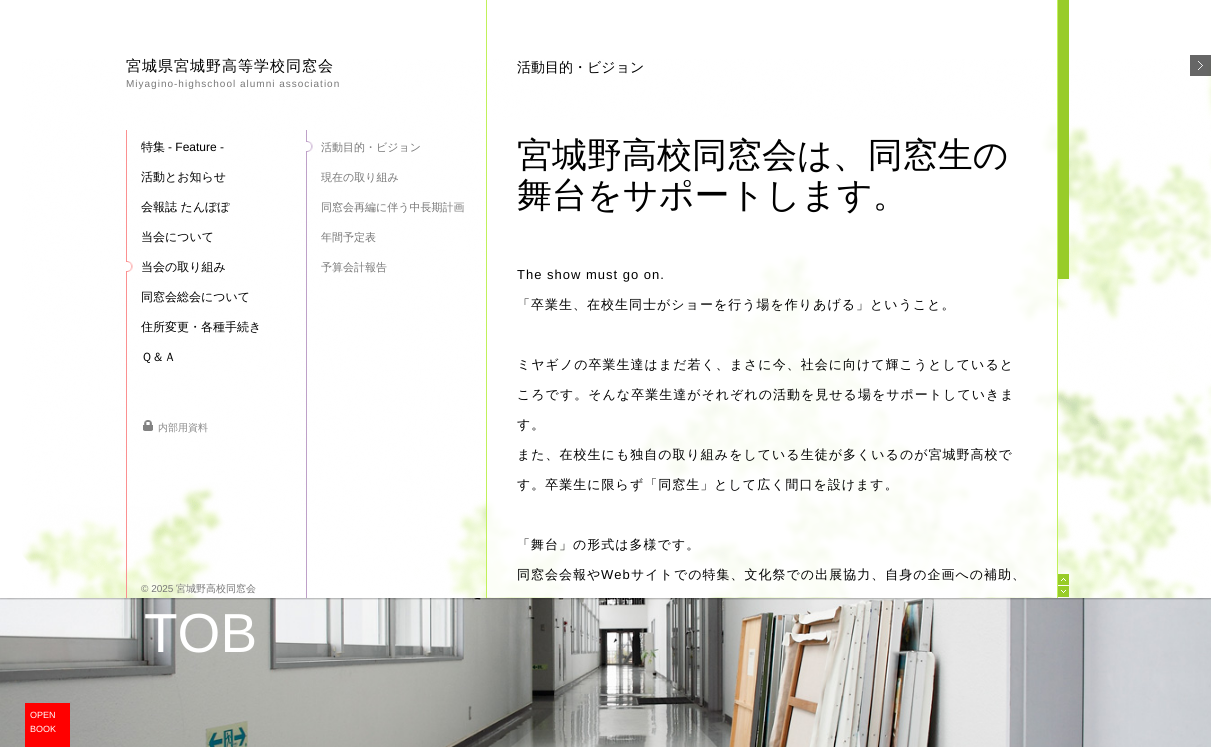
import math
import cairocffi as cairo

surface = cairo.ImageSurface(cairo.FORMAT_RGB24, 1211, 747)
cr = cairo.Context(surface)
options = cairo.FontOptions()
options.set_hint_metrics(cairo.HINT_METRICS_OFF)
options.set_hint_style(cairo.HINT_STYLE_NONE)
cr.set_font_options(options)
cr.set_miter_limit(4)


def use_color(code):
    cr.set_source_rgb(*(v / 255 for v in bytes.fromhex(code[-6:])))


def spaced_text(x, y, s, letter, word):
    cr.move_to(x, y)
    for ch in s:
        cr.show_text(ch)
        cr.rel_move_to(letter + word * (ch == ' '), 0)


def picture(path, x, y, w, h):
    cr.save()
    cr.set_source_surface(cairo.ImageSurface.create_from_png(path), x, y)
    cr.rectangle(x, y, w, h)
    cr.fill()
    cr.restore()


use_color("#ffffff")
cr.paint()
picture("img1.png", 22, 59, 1189, 539)
use_color("#fb9090")
cr.rectangle(126, 130, 1, 468)
cr.fill()
cr.select_font_face("WenQuanYi Zen Hei Medium")
cr.set_font_size(15)
use_color("#000000")
spaced_text(126, 71, "宮城県宮城野高等学校同窓会", 1, 0)
cr.select_font_face("Liberation Sans")
cr.set_font_size(10)
use_color("#777777")
spaced_text(126, 87, "Miyagino-highschool alumni association", 1, 0)
cr.select_font_face("WenQuanYi Zen Hei Medium")
cr.set_font_size(12)
use_color("#000000")
cr.move_to(141, 151)
cr.show_text("特集")
cr.select_font_face("Liberation Sans")
cr.move_to(168, 151)
cr.show_text("- Feature -")
cr.select_font_face("WenQuanYi Zen Hei Medium")
cr.move_to(141, 181)
cr.show_text("活動とお知らせ")
cr.move_to(141, 211)
cr.show_text("会報誌 たんぽぽ")
cr.move_to(141, 241)
cr.show_text("当会について")
picture("img2.png", 126, 261, 7, 11)
cr.move_to(141, 271)
cr.show_text("当会の取り組み")
cr.move_to(141, 301)
cr.show_text("同窓会総会について")
cr.move_to(141, 331)
cr.show_text("住所変更・各種手続き")
cr.move_to(141, 361)
cr.show_text("Ｑ＆Ａ")
picture("img3.png", 143, 420, 10, 11)
cr.set_font_size(10)
use_color("#888888")
cr.move_to(158, 431)
cr.show_text("内部用資料")
use_color("#bea0c8")
cr.rectangle(306, 130, 1, 468)
cr.fill()
picture("img4.png", 306, 141, 7, 11)
cr.set_font_size(11)
use_color("#777777")
cr.move_to(321, 151)
cr.show_text("活動目的・ビジョン")
cr.move_to(321, 181)
cr.show_text("現在の取り組み")
cr.move_to(321, 211)
cr.show_text("同窓会再編に伴う中長期計画")
cr.move_to(321, 241)
cr.show_text("年間予定表")
cr.move_to(321, 271)
cr.show_text("予算会計報告")
use_color("#c1f15a")
cr.rectangle(1057, 0, 1, 598)
cr.fill()
cr.rectangle(486, 0, 1, 598)
cr.fill()
cr.set_source_rgba(1, 1, 1, 0.8)
cr.rectangle(487, 120, 570, 477)
cr.fill()
cr.set_font_size(14)
use_color("#000000")
cr.move_to(517, 72)
cr.show_text("活動目的・ビジョン")
cr.set_font_size(35)
cr.move_to(517, 167)
cr.show_text("宮城野高校同窓会は、同窓生の")
cr.move_to(517, 207)
cr.show_text("舞台をサポートします。")
cr.select_font_face("Liberation Sans")
cr.set_font_size(13)
spaced_text(517, 279, "The show must go on.", 1, 0)
cr.select_font_face("WenQuanYi Zen Hei Medium")
spaced_text(517, 309, "「卒業生、在校生同士がショーを行う場を作りあげる」ということ。", 1, 0)
spaced_text(517, 369, "ミヤギノの卒業生達はまだ若く、まさに今、社会に向けて輝こうとしていると", 1, 0)
spaced_text(517, 399, "ころです。そんな卒業生達がそれぞれの活動を見せる場をサポートしていきま", 1, 0)
spaced_text(517, 429, "す。", 1, 0)
spaced_text(517, 459, "また、在校生にも独自の取り組みをしている生徒が多くいるのが宮城野高校で", 1, 0)
spaced_text(517, 489, "す。卒業生に限らず「同窓生」として広く間口を設けます。", 1, 0)
spaced_text(517, 549, "「舞台」の形式は多様です。", 1, 0)
spaced_text(517, 579, "同窓会会報や", 1, 0)
cr.select_font_face("Liberation Sans")
spaced_text(601, 579, "Web", 1, 0)
cr.select_font_face("WenQuanYi Zen Hei Medium")
spaced_text(631, 579, "サイトでの特集、文化祭での出展協力、自身の企画への補助、", 1, 0)
use_color("#98cc29")
cr.rectangle(1058, 0, 11, 279)
cr.fill()
cr.rectangle(1058, 574, 11, 11)
cr.fill()
picture("img5.png", 1061, 578, 5, 3)
cr.rectangle(1058, 586, 11, 11)
cr.fill()
picture("img6.png", 1061, 590, 5, 3)
picture("img7.png", 1190, 55, 21, 21)
cr.select_font_face("Liberation Sans")
cr.set_font_size(10)
use_color("#777777")
cr.move_to(141, 592)
cr.show_text("© 2025")
cr.select_font_face("WenQuanYi Zen Hei Medium")
cr.move_to(176, 592)
cr.show_text("宮城野高校同窓会")
picture("img8.png", 0, 598, 1211, 149)
picture("img9.png", 0, 598, 1211, 2)
cr.select_font_face("Liberation Sans")
cr.set_font_size(55)
use_color("#ffffff")
cr.move_to(144, 652)
cr.show_text("TOB")
use_color("#ff0000")
cr.rectangle(25, 703, 45, 44)
cr.fill()
cr.set_font_size(9)
use_color("#ffffff")
cr.move_to(30, 718)
cr.show_text("OPEN")
cr.move_to(30, 732)
cr.show_text("BOOK")
surface.write_to_png("result.png")
